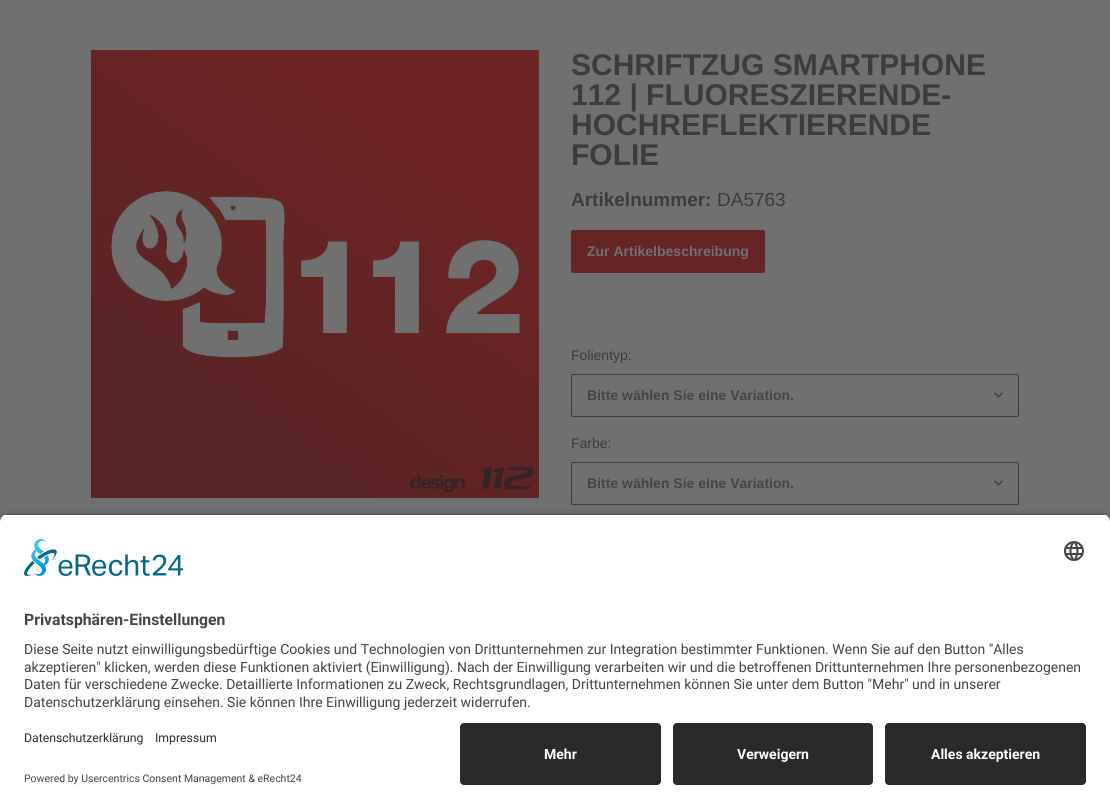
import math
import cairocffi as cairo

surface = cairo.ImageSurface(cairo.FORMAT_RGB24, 1110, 809)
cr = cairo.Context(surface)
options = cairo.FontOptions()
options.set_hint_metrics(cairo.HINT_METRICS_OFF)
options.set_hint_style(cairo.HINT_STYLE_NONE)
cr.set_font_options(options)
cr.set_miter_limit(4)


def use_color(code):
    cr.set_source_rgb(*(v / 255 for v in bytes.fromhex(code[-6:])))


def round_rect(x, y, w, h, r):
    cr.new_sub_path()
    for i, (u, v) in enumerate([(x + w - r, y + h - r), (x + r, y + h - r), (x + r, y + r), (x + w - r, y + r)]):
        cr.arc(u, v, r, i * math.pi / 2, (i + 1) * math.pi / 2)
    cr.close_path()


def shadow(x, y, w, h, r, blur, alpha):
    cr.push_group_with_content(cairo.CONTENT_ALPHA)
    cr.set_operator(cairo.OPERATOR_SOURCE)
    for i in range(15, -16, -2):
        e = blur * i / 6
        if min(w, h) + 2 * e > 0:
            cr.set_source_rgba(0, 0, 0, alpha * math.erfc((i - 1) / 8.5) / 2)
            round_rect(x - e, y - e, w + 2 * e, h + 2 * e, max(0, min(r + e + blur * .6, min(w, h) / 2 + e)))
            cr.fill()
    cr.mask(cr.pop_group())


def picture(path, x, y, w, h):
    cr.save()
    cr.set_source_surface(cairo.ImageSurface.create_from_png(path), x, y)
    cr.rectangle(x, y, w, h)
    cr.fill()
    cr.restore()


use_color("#707070")
cr.paint()
use_color("#6a6a6a")
cr.rectangle(75, 17, 960, 1)
cr.fill()
picture("img1.png", 91, 50, 448, 448)
cr.select_font_face("Liberation Sans", cairo.FONT_SLANT_NORMAL, cairo.FONT_WEIGHT_BOLD)
cr.set_font_size(30)
use_color("#3c3c3c")
cr.move_to(571, 75)
cr.show_text("SCHRIFTZUG SMARTPHONE")
cr.move_to(571, 105)
cr.show_text("112 | FLUORESZIERENDE-")
cr.move_to(571, 135)
cr.show_text("HOCHREFLEKTIERENDE")
cr.move_to(571, 165)
cr.show_text("FOLIE")
cr.set_font_size(19)
cr.move_to(571, 206)
cr.show_text("Artikelnummer:")
cr.select_font_face("Liberation Sans")
cr.move_to(717, 206)
cr.show_text("DA5763")
use_color("#652525")
round_rect(571.5, 230.5, 193, 42, 1.5)
cr.fill_preserve()
cr.set_line_width(1)
cr.stroke()
cr.select_font_face("Liberation Sans", cairo.FONT_SLANT_NORMAL, cairo.FONT_WEIGHT_BOLD)
cr.set_font_size(14)
use_color("#707070")
cr.move_to(587, 256)
cr.show_text("Zur Artikelbeschreibung")
cr.select_font_face("Liberation Sans")
use_color("#3c3c3c")
cr.move_to(571, 360)
cr.show_text("Folientyp:")
round_rect(571.5, 374.5, 447, 42, 1.5)
cr.stroke()
cr.select_font_face("Liberation Sans", cairo.FONT_SLANT_NORMAL, cairo.FONT_WEIGHT_BOLD)
use_color("#454545")
cr.move_to(587, 400)
cr.show_text("Bitte wählen Sie eine Variation.")
picture("img2.png", 994, 392, 9, 6)
cr.select_font_face("Liberation Sans")
use_color("#3c3c3c")
cr.move_to(571, 448)
cr.show_text("Farbe:")
round_rect(571.5, 462.5, 447, 42, 1.5)
cr.stroke()
cr.select_font_face("Liberation Sans", cairo.FONT_SLANT_NORMAL, cairo.FONT_WEIGHT_BOLD)
use_color("#454545")
cr.move_to(587, 488)
cr.show_text("Bitte wählen Sie eine Variation.")
picture("img2.png", 994, 480, 9, 6)
use_color("#000000")
shadow(0, 517, 1110, 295, 8, 3.5, 0.8)
cr.save()
cr.new_path()
cr.move_to(8, 514)
cr.line_to(1102, 514)
cr.curve_to(1106.5, 514, 1110, 517.5, 1110, 522)
cr.line_to(1110, 715)
cr.line_to(0, 715)
cr.line_to(0, 522)
cr.curve_to(0, 517.5, 3.5, 514, 8, 514)
cr.close_path()
cr.clip()
use_color("#ffffff")
cr.rectangle(0, 515, 1110, 200)
cr.fill()
cr.restore()
picture("img3.png", 24, 539, 160, 37)
picture("img4.png", 1064, 541, 20, 20)
cr.select_font_face("Roboto", cairo.FONT_SLANT_NORMAL, cairo.FONT_WEIGHT_BOLD)
cr.set_font_size(15.75)
use_color("#454545")
cr.move_to(24, 625)
cr.show_text("Privatsphären-Einstellungen")
cr.select_font_face("Roboto")
cr.set_font_size(14)
cr.move_to(24, 654)
cr.show_text("Diese Seite nutzt einwilligungsbedürftige Cookies und Technologien von Drittunternehmen zur Integration bestimmter Funktionen. Wenn Sie auf den Button \"Alles")
cr.move_to(24, 672)
cr.show_text("akzeptieren\" klicken, werden diese Funktionen aktiviert (Einwilligung). Nach der Einwilligung verarbeiten wir und die betroffenen Drittunternehmen Ihre personenbezogenen")
cr.move_to(24, 689)
cr.show_text("Daten für verschiedene Zwecke. Detaillierte Informationen zu Zweck, Rechtsgrundlagen, Drittunternehmen können Sie unter dem Button \"Mehr\" und in unserer")
cr.move_to(24, 707)
cr.show_text("Datenschutzerklärung einsehen. Sie können Ihre Einwilligung jederzeit widerrufen.")
use_color("#ffffff")
cr.rectangle(0, 715, 1110, 94)
cr.fill()
cr.set_font_size(12.25)
use_color("#303030")
cr.move_to(24, 742)
cr.show_text("Datenschutzerklärung")
cr.move_to(155, 742)
cr.show_text("Impressum")
cr.set_font_size(10.5)
use_color("#454545")
cr.move_to(24, 782)
cr.show_text("Powered by Usercentrics Consent Management & eRecht24")
use_color("#292a2b")
round_rect(460, 723, 201, 62, 4)
cr.fill()
cr.select_font_face("Roboto", cairo.FONT_SLANT_NORMAL, cairo.FONT_WEIGHT_BOLD)
cr.set_font_size(14)
use_color("#ffffff")
cr.move_to(544, 759)
cr.show_text("Mehr")
use_color("#292a2b")
round_rect(673, 723, 200, 62, 4)
cr.fill()
use_color("#ffffff")
cr.move_to(737, 759)
cr.show_text("Verweigern")
use_color("#292a2b")
round_rect(885, 723, 201, 62, 4)
cr.fill()
use_color("#ffffff")
cr.move_to(931, 759)
cr.show_text("Alles akzeptieren")
surface.write_to_png("result.png")
